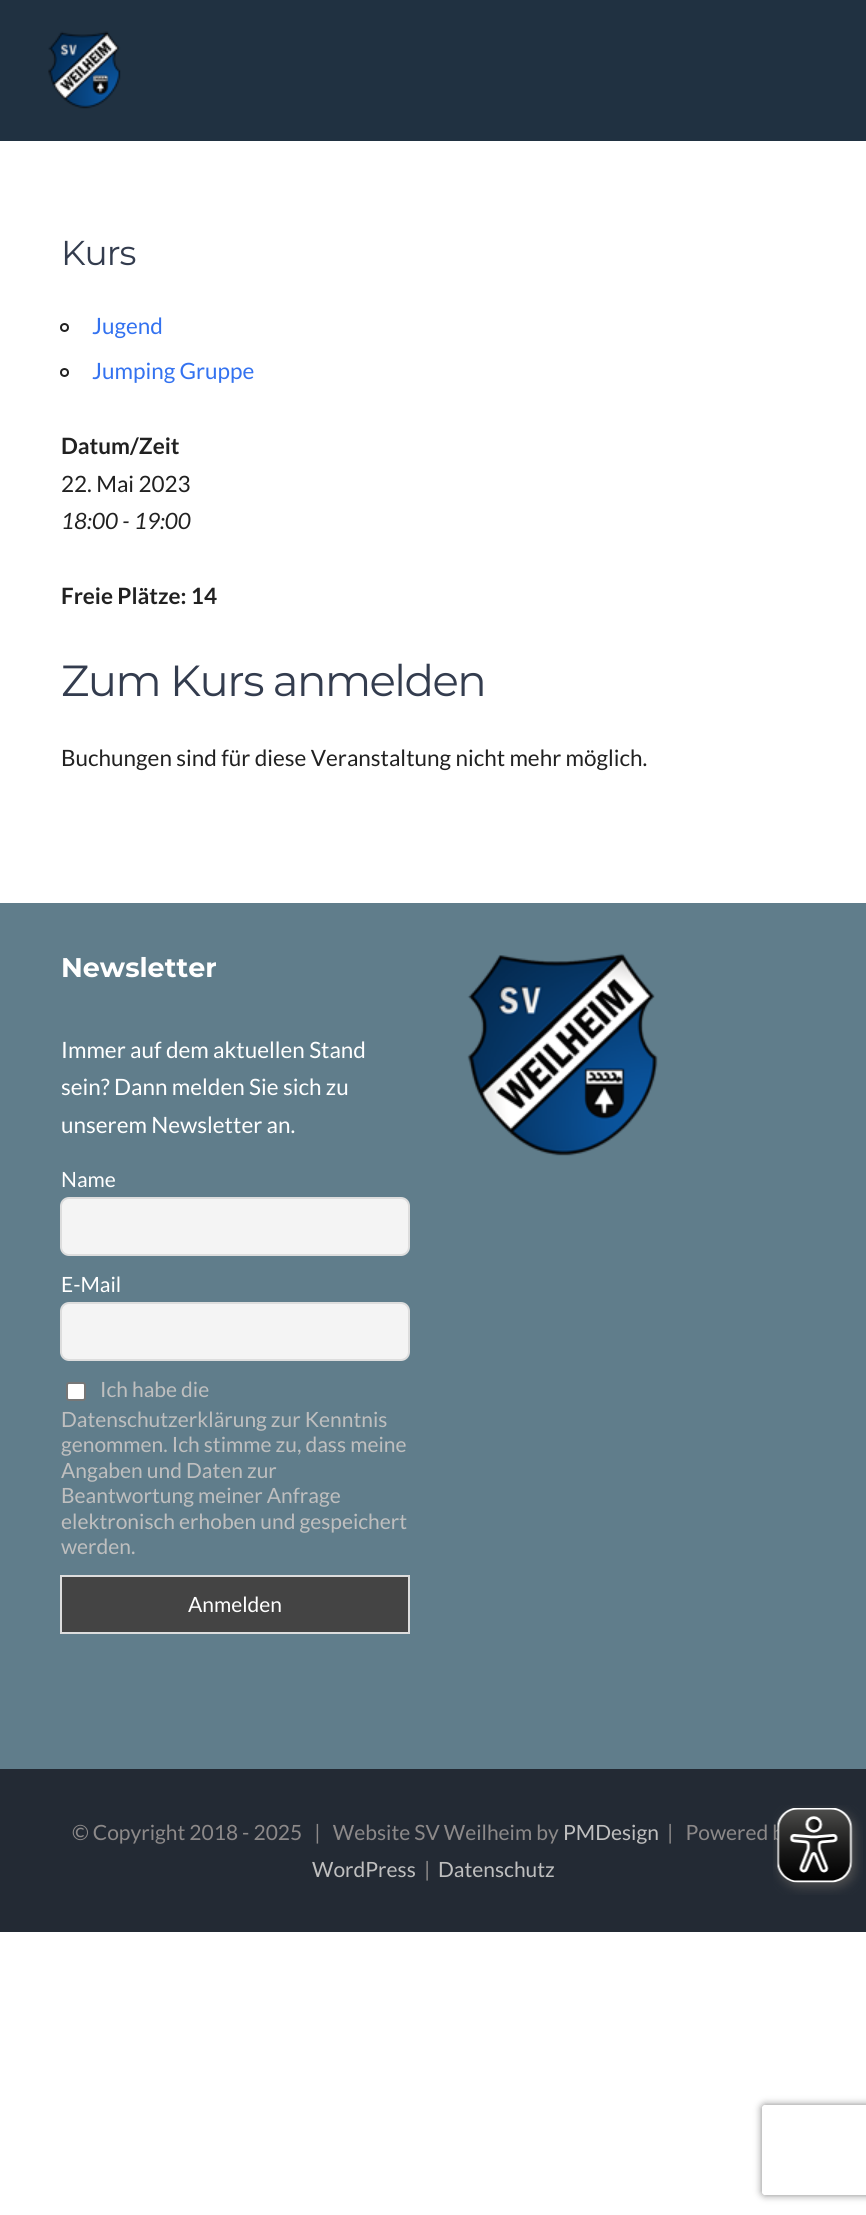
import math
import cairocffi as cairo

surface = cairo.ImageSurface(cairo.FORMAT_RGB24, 866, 2215)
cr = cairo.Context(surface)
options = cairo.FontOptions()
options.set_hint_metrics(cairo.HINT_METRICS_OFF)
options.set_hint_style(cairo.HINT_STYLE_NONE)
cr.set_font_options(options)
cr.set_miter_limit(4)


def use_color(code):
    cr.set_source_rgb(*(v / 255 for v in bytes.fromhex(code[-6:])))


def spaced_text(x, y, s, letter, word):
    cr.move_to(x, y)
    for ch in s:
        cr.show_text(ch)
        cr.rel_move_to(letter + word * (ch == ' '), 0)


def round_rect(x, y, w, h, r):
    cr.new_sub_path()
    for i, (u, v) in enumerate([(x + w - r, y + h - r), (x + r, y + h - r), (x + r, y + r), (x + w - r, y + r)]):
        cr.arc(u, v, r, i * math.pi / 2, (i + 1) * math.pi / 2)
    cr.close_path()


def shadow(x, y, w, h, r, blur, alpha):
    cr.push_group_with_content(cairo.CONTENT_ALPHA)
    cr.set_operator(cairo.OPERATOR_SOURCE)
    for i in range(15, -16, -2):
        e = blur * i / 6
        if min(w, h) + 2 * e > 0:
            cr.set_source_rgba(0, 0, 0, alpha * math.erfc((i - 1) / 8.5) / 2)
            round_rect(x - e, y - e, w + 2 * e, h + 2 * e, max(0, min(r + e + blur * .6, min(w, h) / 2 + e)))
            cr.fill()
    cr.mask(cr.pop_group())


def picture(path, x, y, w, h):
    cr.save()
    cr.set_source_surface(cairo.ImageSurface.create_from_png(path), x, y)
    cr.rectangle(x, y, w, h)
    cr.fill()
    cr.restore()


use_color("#ffffff")
cr.paint()
use_color("#203141")
cr.rectangle(0, 0, 866, 141)
cr.fill()
picture("img1.png", 48, 31, 73, 78)
cr.select_font_face("Montserrat")
cr.set_font_size(34.5)
use_color("#333c4e")
spaced_text(61, 265, "Kurs", -1, 0)
cr.new_path()
cr.arc(64.5, 327.5, 3.5, 0, 2 * math.pi)
use_color("#212121")
cr.stroke()
cr.select_font_face("Lato")
cr.set_font_size(22.5)
use_color("#3372f0")
cr.move_to(92, 334)
cr.show_text("Jugend")
cr.new_path()
cr.arc(64.5, 372.5, 3.5, 0, 2 * math.pi)
use_color("#212121")
cr.stroke()
use_color("#3372f0")
cr.move_to(92, 379)
cr.show_text("Jumping Gruppe")
cr.select_font_face("Lato", cairo.FONT_SLANT_NORMAL, cairo.FONT_WEIGHT_BOLD)
use_color("#212121")
cr.move_to(61, 454)
cr.show_text("Datum/Zeit")
cr.select_font_face("Lato")
cr.move_to(61, 492)
cr.show_text("22. Mai 2023")
cr.select_font_face("Lato", cairo.FONT_SLANT_ITALIC)
cr.move_to(61, 529)
cr.show_text("18:00 - 19:00")
cr.select_font_face("Lato", cairo.FONT_SLANT_NORMAL, cairo.FONT_WEIGHT_BOLD)
cr.move_to(61, 604)
cr.show_text("Freie Plätze: 14")
cr.select_font_face("Montserrat")
cr.set_font_size(43.5)
use_color("#333c4e")
spaced_text(61, 696, "Zum Kurs anmelden", -1.5, 0)
cr.select_font_face("Lato")
cr.set_font_size(22.5)
use_color("#212121")
cr.move_to(61, 766)
cr.show_text("Buchungen sind für diese Veranstaltung nicht mehr möglich.")
use_color("#607d8b")
cr.rectangle(0, 903, 866, 866)
cr.fill()
cr.select_font_face("Montserrat", cairo.FONT_SLANT_NORMAL, cairo.FONT_WEIGHT_BOLD)
cr.set_font_size(27)
use_color("#ffffff")
cr.move_to(61, 977)
cr.show_text("Newsletter")
cr.select_font_face("Lato")
cr.set_font_size(22.5)
cr.move_to(61, 1058)
cr.show_text("Immer auf dem aktuellen Stand")
cr.move_to(61, 1095)
cr.show_text("sein? Dann melden Sie sich zu")
cr.move_to(61, 1133)
cr.show_text("unserem Newsletter an.")
cr.set_font_size(21)
cr.move_to(61, 1187)
cr.show_text("Name")
use_color("#f4f4f4")
round_rect(61, 1198, 348, 57, 8)
cr.fill_preserve()
use_color("#dddddd")
cr.stroke()
use_color("#ffffff")
cr.move_to(61, 1292)
cr.show_text("E-Mail")
use_color("#f4f4f4")
round_rect(61, 1303, 348, 57, 8)
cr.fill_preserve()
use_color("#dddddd")
cr.stroke()
use_color("#ffffff")
round_rect(67, 1383, 18, 17, 2)
cr.fill_preserve()
use_color("#767676")
cr.stroke()
use_color("#bfbfbf")
cr.move_to(100, 1397)
cr.show_text("Ich habe die")
cr.move_to(61, 1427)
cr.show_text("Datenschutzerklärung zur Kenntnis")
cr.move_to(61, 1452)
cr.show_text("genommen. Ich stimme zu, dass meine")
cr.move_to(61, 1478)
cr.show_text("Angaben und Daten zur")
cr.move_to(61, 1503)
cr.show_text("Beantwortung meiner Anfrage")
cr.move_to(61, 1529)
cr.show_text("elektronisch erhoben und gespeichert")
cr.move_to(61, 1554)
cr.show_text("werden.")
use_color("#444444")
cr.rectangle(61, 1576, 348, 57)
cr.fill_preserve()
use_color("#dddddd")
cr.stroke()
use_color("#ffffff")
cr.move_to(188, 1612)
cr.show_text("Anmelden")
picture("img2.png", 467, 953, 191, 203)
use_color("#232a34")
cr.rectangle(0, 1769, 866, 163)
cr.fill()
use_color("#8c8989")
cr.move_to(72, 1840)
cr.show_text("© Copyright 2018 - 2025   |   Website SV Weilheim by")
use_color("#bfbfbf")
cr.move_to(563, 1840)
cr.show_text("PMDesign")
use_color("#8c8989")
cr.move_to(667, 1840)
cr.show_text("|   Powered b")
use_color("#bfbfbf")
cr.move_to(312, 1877)
cr.show_text("WordPress")
use_color("#8c8989")
cr.move_to(424, 1877)
cr.show_text("|")
use_color("#bfbfbf")
cr.move_to(438, 1877)
cr.show_text("Datenschutz")
picture("img3.png", 773, 1805, 90, 90)
cr.save()
cr.set_fill_rule(cairo.FILL_RULE_EVEN_ODD)
cr.new_path()
cr.move_to(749, 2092)
cr.line_to(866, 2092)
cr.line_to(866, 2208)
cr.line_to(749, 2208)
cr.close_path()
cr.move_to(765, 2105)
cr.line_to(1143, 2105)
cr.curve_to(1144.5, 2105, 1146, 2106.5, 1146, 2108)
cr.line_to(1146, 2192)
cr.curve_to(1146, 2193.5, 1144.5, 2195, 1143, 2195)
cr.line_to(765, 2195)
cr.curve_to(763.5, 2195, 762, 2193.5, 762, 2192)
cr.line_to(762, 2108)
cr.curve_to(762, 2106.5, 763.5, 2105, 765, 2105)
cr.close_path()
cr.clip()
use_color("#808080")
shadow(762, 2105, 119, 90, 3, 4, 1)
cr.restore()
surface.write_to_png("result.png")
